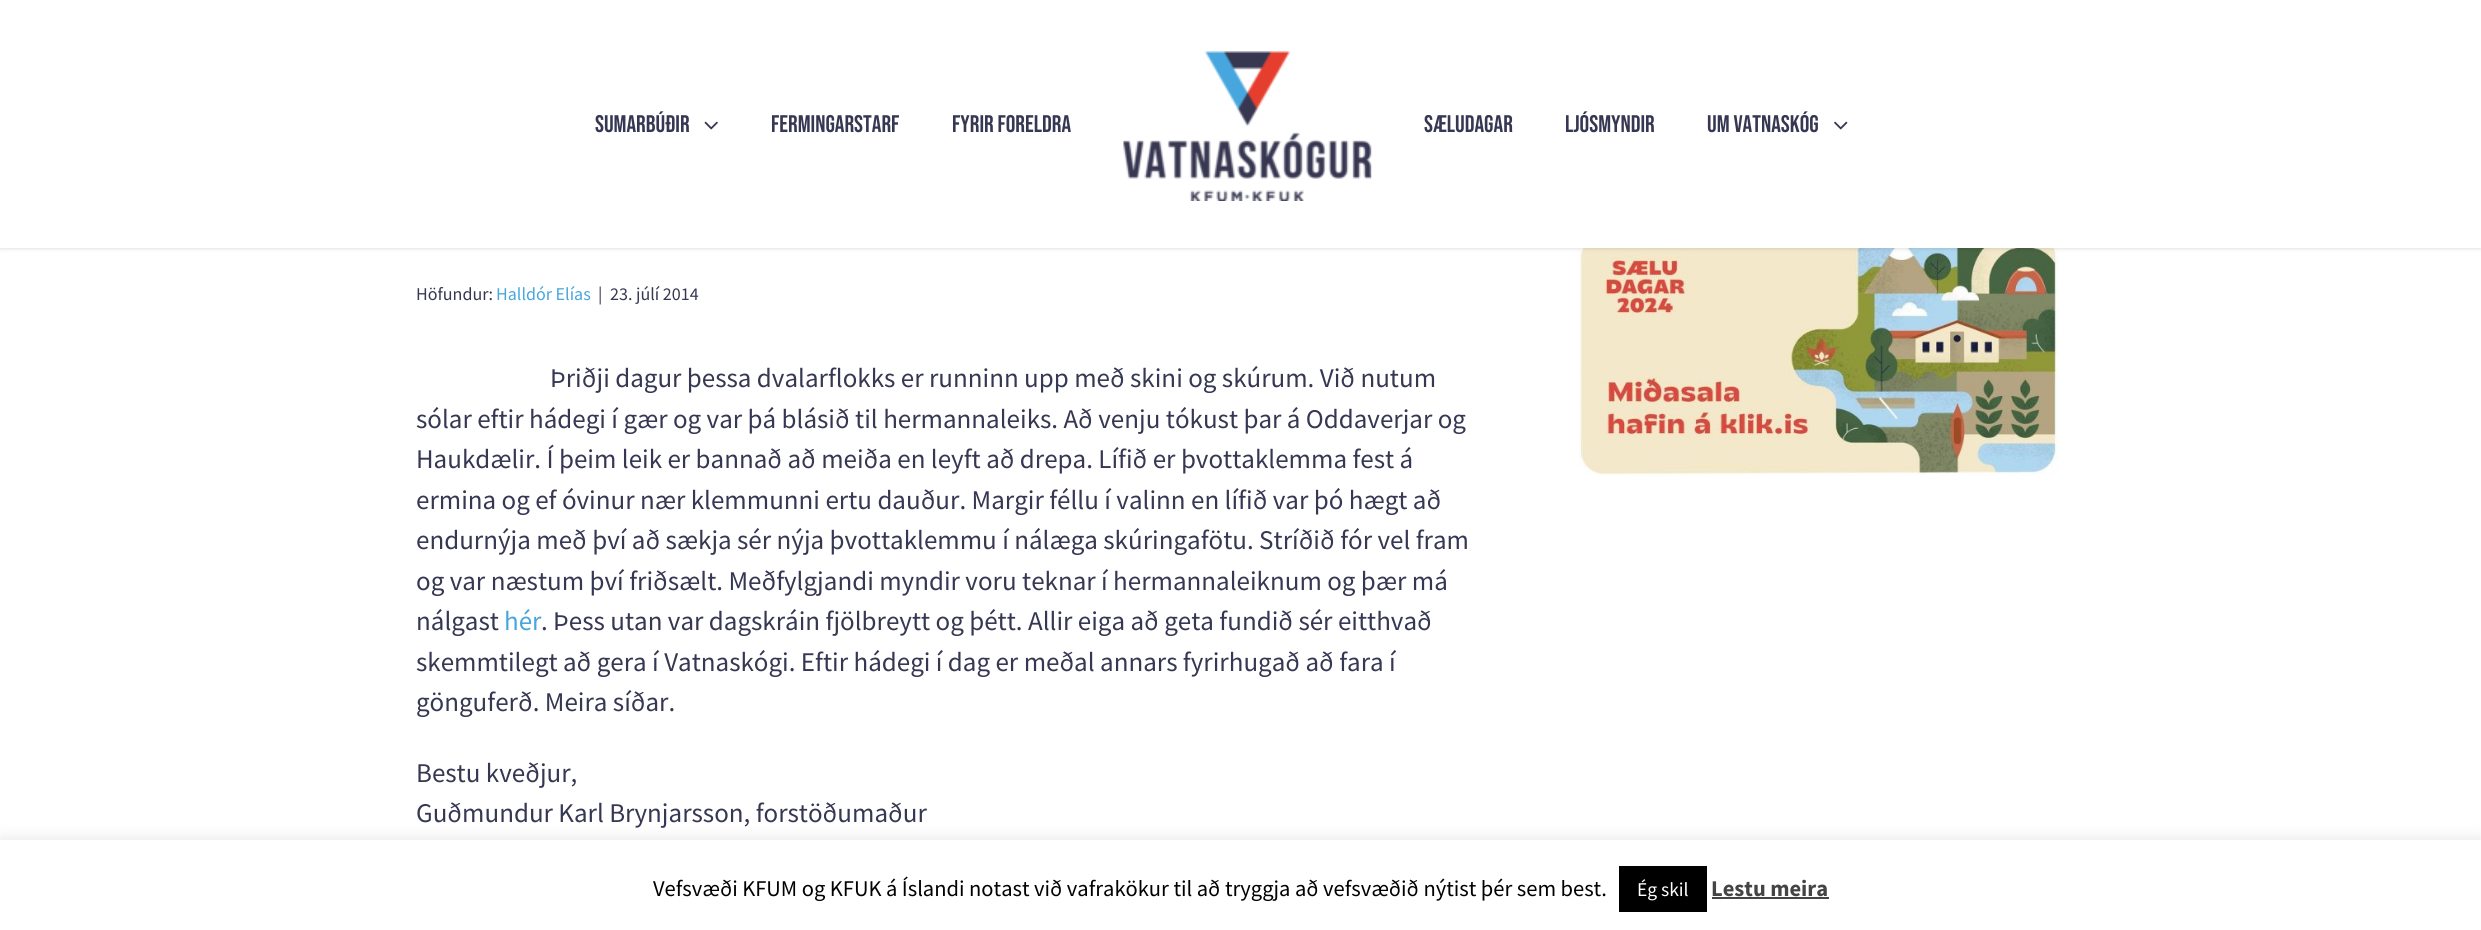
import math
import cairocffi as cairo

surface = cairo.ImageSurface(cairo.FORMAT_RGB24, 2481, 930)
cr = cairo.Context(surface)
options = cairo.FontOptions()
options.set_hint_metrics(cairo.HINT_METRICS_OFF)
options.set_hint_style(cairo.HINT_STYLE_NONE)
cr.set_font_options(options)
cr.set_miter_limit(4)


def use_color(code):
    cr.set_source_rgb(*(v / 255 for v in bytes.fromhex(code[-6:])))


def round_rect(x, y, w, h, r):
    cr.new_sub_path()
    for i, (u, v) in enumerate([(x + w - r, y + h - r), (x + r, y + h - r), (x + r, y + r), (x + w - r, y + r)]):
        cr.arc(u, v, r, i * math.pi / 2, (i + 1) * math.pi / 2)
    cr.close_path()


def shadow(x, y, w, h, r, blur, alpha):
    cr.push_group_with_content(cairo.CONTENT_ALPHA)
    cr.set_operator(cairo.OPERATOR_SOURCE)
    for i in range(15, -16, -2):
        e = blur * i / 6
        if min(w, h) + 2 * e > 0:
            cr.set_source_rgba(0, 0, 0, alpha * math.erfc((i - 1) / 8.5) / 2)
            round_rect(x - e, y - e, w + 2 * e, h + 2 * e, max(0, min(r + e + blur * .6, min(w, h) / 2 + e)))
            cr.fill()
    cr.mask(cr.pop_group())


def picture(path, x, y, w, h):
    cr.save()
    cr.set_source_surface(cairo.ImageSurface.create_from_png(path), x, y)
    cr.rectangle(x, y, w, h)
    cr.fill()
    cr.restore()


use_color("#ffffff")
cr.paint()
picture("img4.png", 1579, 248, 480, 229)
use_color("#000000")
shadow(0, 2, 2481, 247, 0, 2, 0.12)
use_color("#ffffff")
cr.rectangle(0, 0, 2481, 248)
cr.fill()
cr.select_font_face("Bebas Neue")
cr.set_font_size(24)
use_color("#363752")
cr.move_to(595, 132)
cr.show_text("Sumarbúðir")
picture("img1.png", 704, 121, 14, 9)
cr.move_to(771, 132)
cr.show_text("Fermingarstarf")
cr.move_to(952, 132)
cr.show_text("Fyrir foreldra")
picture("img2.png", 1123, 51, 249, 150)
cr.move_to(1424, 132)
cr.show_text("Sæludagar")
cr.move_to(1565, 132)
cr.show_text("Ljósmyndir")
cr.move_to(1707, 132)
cr.show_text("Um Vatnaskóg")
picture("img3.png", 1834, 121, 14, 9)
cr.select_font_face("Source Sans Pro")
cr.set_font_size(18)
cr.move_to(416, 300)
cr.show_text("Höfundur:")
use_color("#47a6dc")
cr.move_to(496, 300)
cr.show_text("Halldór Elías")
use_color("#363752")
cr.move_to(598, 300)
cr.show_text("|")
cr.move_to(610, 300)
cr.show_text("23. júlí 2014")
cr.set_font_size(27)
cr.move_to(550, 387)
cr.show_text("Þriðji dagur þessa dvalarflokks er runninn upp með skini og skúrum. Við nutum")
cr.move_to(416, 428)
cr.show_text("sólar eftir hádegi í gær og var þá blásið til hermannaleiks. Að venju tókust þar á Oddaverjar og")
cr.move_to(416, 468)
cr.show_text("Haukdælir. Í þeim leik er bannað að meiða en leyft að drepa. Lífið er þvottaklemma fest á")
cr.move_to(416, 509)
cr.show_text("ermina og ef óvinur nær klemmunni ertu dauður. Margir féllu í valinn en lífið var þó hægt að")
cr.move_to(416, 549)
cr.show_text("endurnýja með því að sækja sér nýja þvottaklemmu í nálæga skúringafötu. Stríðið fór vel fram")
cr.move_to(416, 590)
cr.show_text("og var næstum því friðsælt. Meðfylgjandi myndir voru teknar í hermannaleiknum og þær má")
cr.move_to(416, 630)
cr.show_text("nálgast")
use_color("#47a6dc")
cr.move_to(504, 630)
cr.show_text("hér")
use_color("#363752")
cr.move_to(541, 630)
cr.show_text(". Þess utan var dagskráin fjölbreytt og þétt. Allir eiga að geta fundið sér eitthvað")
cr.move_to(416, 671)
cr.show_text("skemmtilegt að gera í Vatnaskógi. Eftir hádegi í dag er meðal annars fyrirhugað að fara í")
cr.move_to(416, 711)
cr.show_text("gönguferð. Meira síðar.")
cr.move_to(416, 782)
cr.show_text("Bestu kveðjur,")
cr.move_to(416, 822)
cr.show_text("Guðmundur Karl Brynjarsson, forstöðumaður")
use_color("#acabab")
shadow(0, 839, 2481, 90, 0, 7.5, 0.3)
use_color("#ffffff")
cr.rectangle(0, 840, 2481, 90)
cr.fill()
cr.set_font_size(22.5)
use_color("#000000")
cr.move_to(653, 896)
cr.show_text("Vefsvæði KFUM og KFUK á Íslandi notast við vafrakökur til að tryggja að vefsvæðið nýtist þér sem best.")
cr.rectangle(1619, 866, 88, 46)
cr.fill()
cr.set_font_size(19.5)
use_color("#ffffff")
cr.move_to(1637, 896)
cr.show_text("Ég skil")
cr.select_font_face("Source Sans Pro", cairo.FONT_SLANT_NORMAL, cairo.FONT_WEIGHT_BOLD)
cr.set_font_size(22.5)
use_color("#444444")
cr.move_to(1711, 896)
cr.show_text("Lestu meira")
cr.rectangle(1712, 897, 117, 2)
cr.fill()
surface.write_to_png("result.png")
